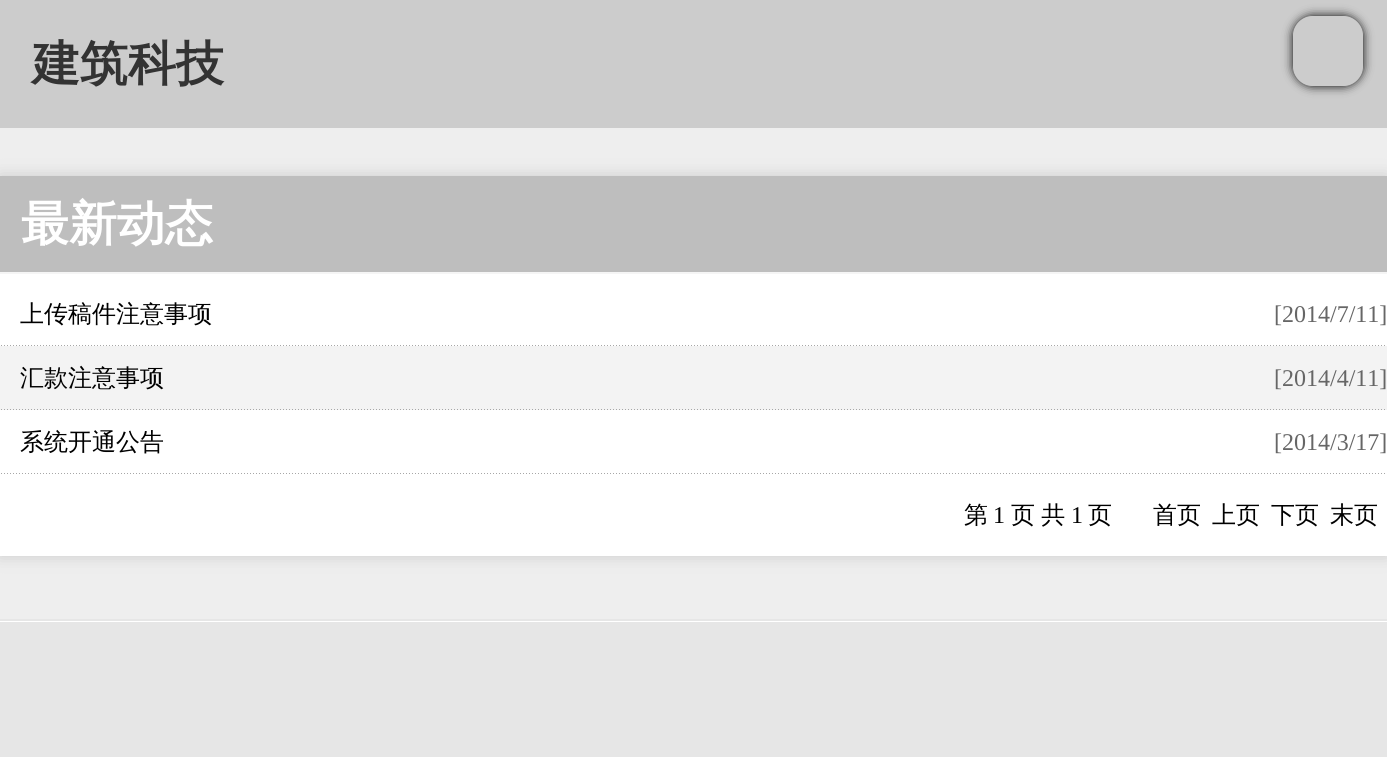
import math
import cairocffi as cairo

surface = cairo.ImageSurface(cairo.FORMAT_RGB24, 1387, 757)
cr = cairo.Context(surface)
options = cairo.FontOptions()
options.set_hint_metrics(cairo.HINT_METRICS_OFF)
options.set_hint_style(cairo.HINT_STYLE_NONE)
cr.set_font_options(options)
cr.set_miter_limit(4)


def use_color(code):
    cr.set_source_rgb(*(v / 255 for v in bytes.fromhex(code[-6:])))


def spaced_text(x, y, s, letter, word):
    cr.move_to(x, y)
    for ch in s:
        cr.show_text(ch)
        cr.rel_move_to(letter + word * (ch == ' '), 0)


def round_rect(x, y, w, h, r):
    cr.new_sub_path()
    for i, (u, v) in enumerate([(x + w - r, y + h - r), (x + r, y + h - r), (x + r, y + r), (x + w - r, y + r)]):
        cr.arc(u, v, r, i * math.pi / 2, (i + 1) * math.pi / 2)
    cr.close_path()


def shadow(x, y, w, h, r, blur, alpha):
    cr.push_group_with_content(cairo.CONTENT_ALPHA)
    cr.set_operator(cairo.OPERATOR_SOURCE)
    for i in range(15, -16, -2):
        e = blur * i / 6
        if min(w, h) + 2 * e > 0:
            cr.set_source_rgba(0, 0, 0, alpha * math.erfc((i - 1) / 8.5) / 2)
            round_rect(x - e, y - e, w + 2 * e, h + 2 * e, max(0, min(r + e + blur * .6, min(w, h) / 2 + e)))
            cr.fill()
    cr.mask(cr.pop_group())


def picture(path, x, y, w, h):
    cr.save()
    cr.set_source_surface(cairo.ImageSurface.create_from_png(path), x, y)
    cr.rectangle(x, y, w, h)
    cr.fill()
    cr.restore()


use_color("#e6e6e6")
cr.paint()
use_color("#cccccc")
cr.rectangle(0, 0, 1387, 128)
cr.fill()
cr.select_font_face("WenQuanYi Zen Hei", cairo.FONT_SLANT_NORMAL, cairo.FONT_WEIGHT_BOLD)
cr.set_font_size(48)
use_color("#333333")
cr.move_to(32, 80)
cr.show_text("建筑科技")
cr.save()
cr.set_fill_rule(cairo.FILL_RULE_EVEN_ODD)
cr.new_path()
cr.move_to(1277, 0)
cr.line_to(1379, 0)
cr.line_to(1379, 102)
cr.line_to(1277, 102)
cr.close_path()
cr.move_to(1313, 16)
cr.line_to(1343, 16)
cr.curve_to(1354, 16, 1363, 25, 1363, 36)
cr.line_to(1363, 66)
cr.curve_to(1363, 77, 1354, 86, 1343, 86)
cr.line_to(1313, 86)
cr.curve_to(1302, 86, 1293, 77, 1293, 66)
cr.line_to(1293, 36)
cr.curve_to(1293, 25, 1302, 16, 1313, 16)
cr.close_path()
cr.clip()
use_color("#000000")
shadow(1293, 16, 70, 70, 20, 5, 1)
cr.restore()
use_color("#eeeeee")
cr.rectangle(0, 128, 1387, 491)
cr.fill()
use_color("#cccccc")
shadow(0, 176, 1387, 380, 0, 8, 1)
use_color("#bebebe")
cr.rectangle(0, 176, 1387, 96)
cr.fill()
use_color("#f5f5f5")
cr.rectangle(0, 272, 1387, 2)
cr.fill()
use_color("#ffffff")
cr.move_to(21, 240)
cr.show_text("最新动态")
cr.rectangle(0, 274, 1387, 282)
cr.fill()
picture("img1.png", 1, 345, 1384, 1)
cr.select_font_face("WenQuanYi Zen Hei Medium")
cr.set_font_size(24)
use_color("#000000")
cr.move_to(20, 322)
cr.show_text("上传稿件注意事项")
cr.select_font_face("Liberation Serif")
use_color("#666666")
cr.move_to(1274, 322)
cr.show_text("[2014/7/11]")
use_color("#f3f3f3")
cr.rectangle(0, 346, 1387, 64)
cr.fill()
picture("img2.png", 1, 409, 1384, 1)
cr.select_font_face("WenQuanYi Zen Hei Medium")
use_color("#000000")
cr.move_to(20, 386)
cr.show_text("汇款注意事项")
cr.select_font_face("Liberation Serif")
use_color("#666666")
cr.move_to(1274, 386)
cr.show_text("[2014/4/11]")
picture("img1.png", 1, 473, 1384, 1)
cr.select_font_face("WenQuanYi Zen Hei Medium")
use_color("#000000")
cr.move_to(20, 450)
cr.show_text("系统开通公告")
cr.select_font_face("Liberation Serif")
use_color("#666666")
cr.move_to(1274, 450)
cr.show_text("[2014/3/17]")
cr.select_font_face("WenQuanYi Zen Hei Medium")
use_color("#000000")
cr.move_to(964, 523)
cr.show_text("第")
cr.select_font_face("Liberation Serif")
cr.move_to(993, 523)
cr.show_text("1")
cr.select_font_face("WenQuanYi Zen Hei Medium")
spaced_text(1011, 523, "页 共", 0, -1)
cr.select_font_face("Liberation Serif")
cr.move_to(1071, 523)
cr.show_text("1")
cr.select_font_face("WenQuanYi Zen Hei Medium")
cr.move_to(1088, 523)
cr.show_text("页")
cr.move_to(1153, 523)
cr.show_text("首页")
cr.move_to(1212, 523)
cr.show_text("上页")
cr.move_to(1271, 523)
cr.show_text("下页")
cr.move_to(1330, 523)
cr.show_text("末页")
use_color("#ffffff")
cr.rectangle(0, 621, 1387, 1)
cr.fill()
surface.write_to_png("result.png")
